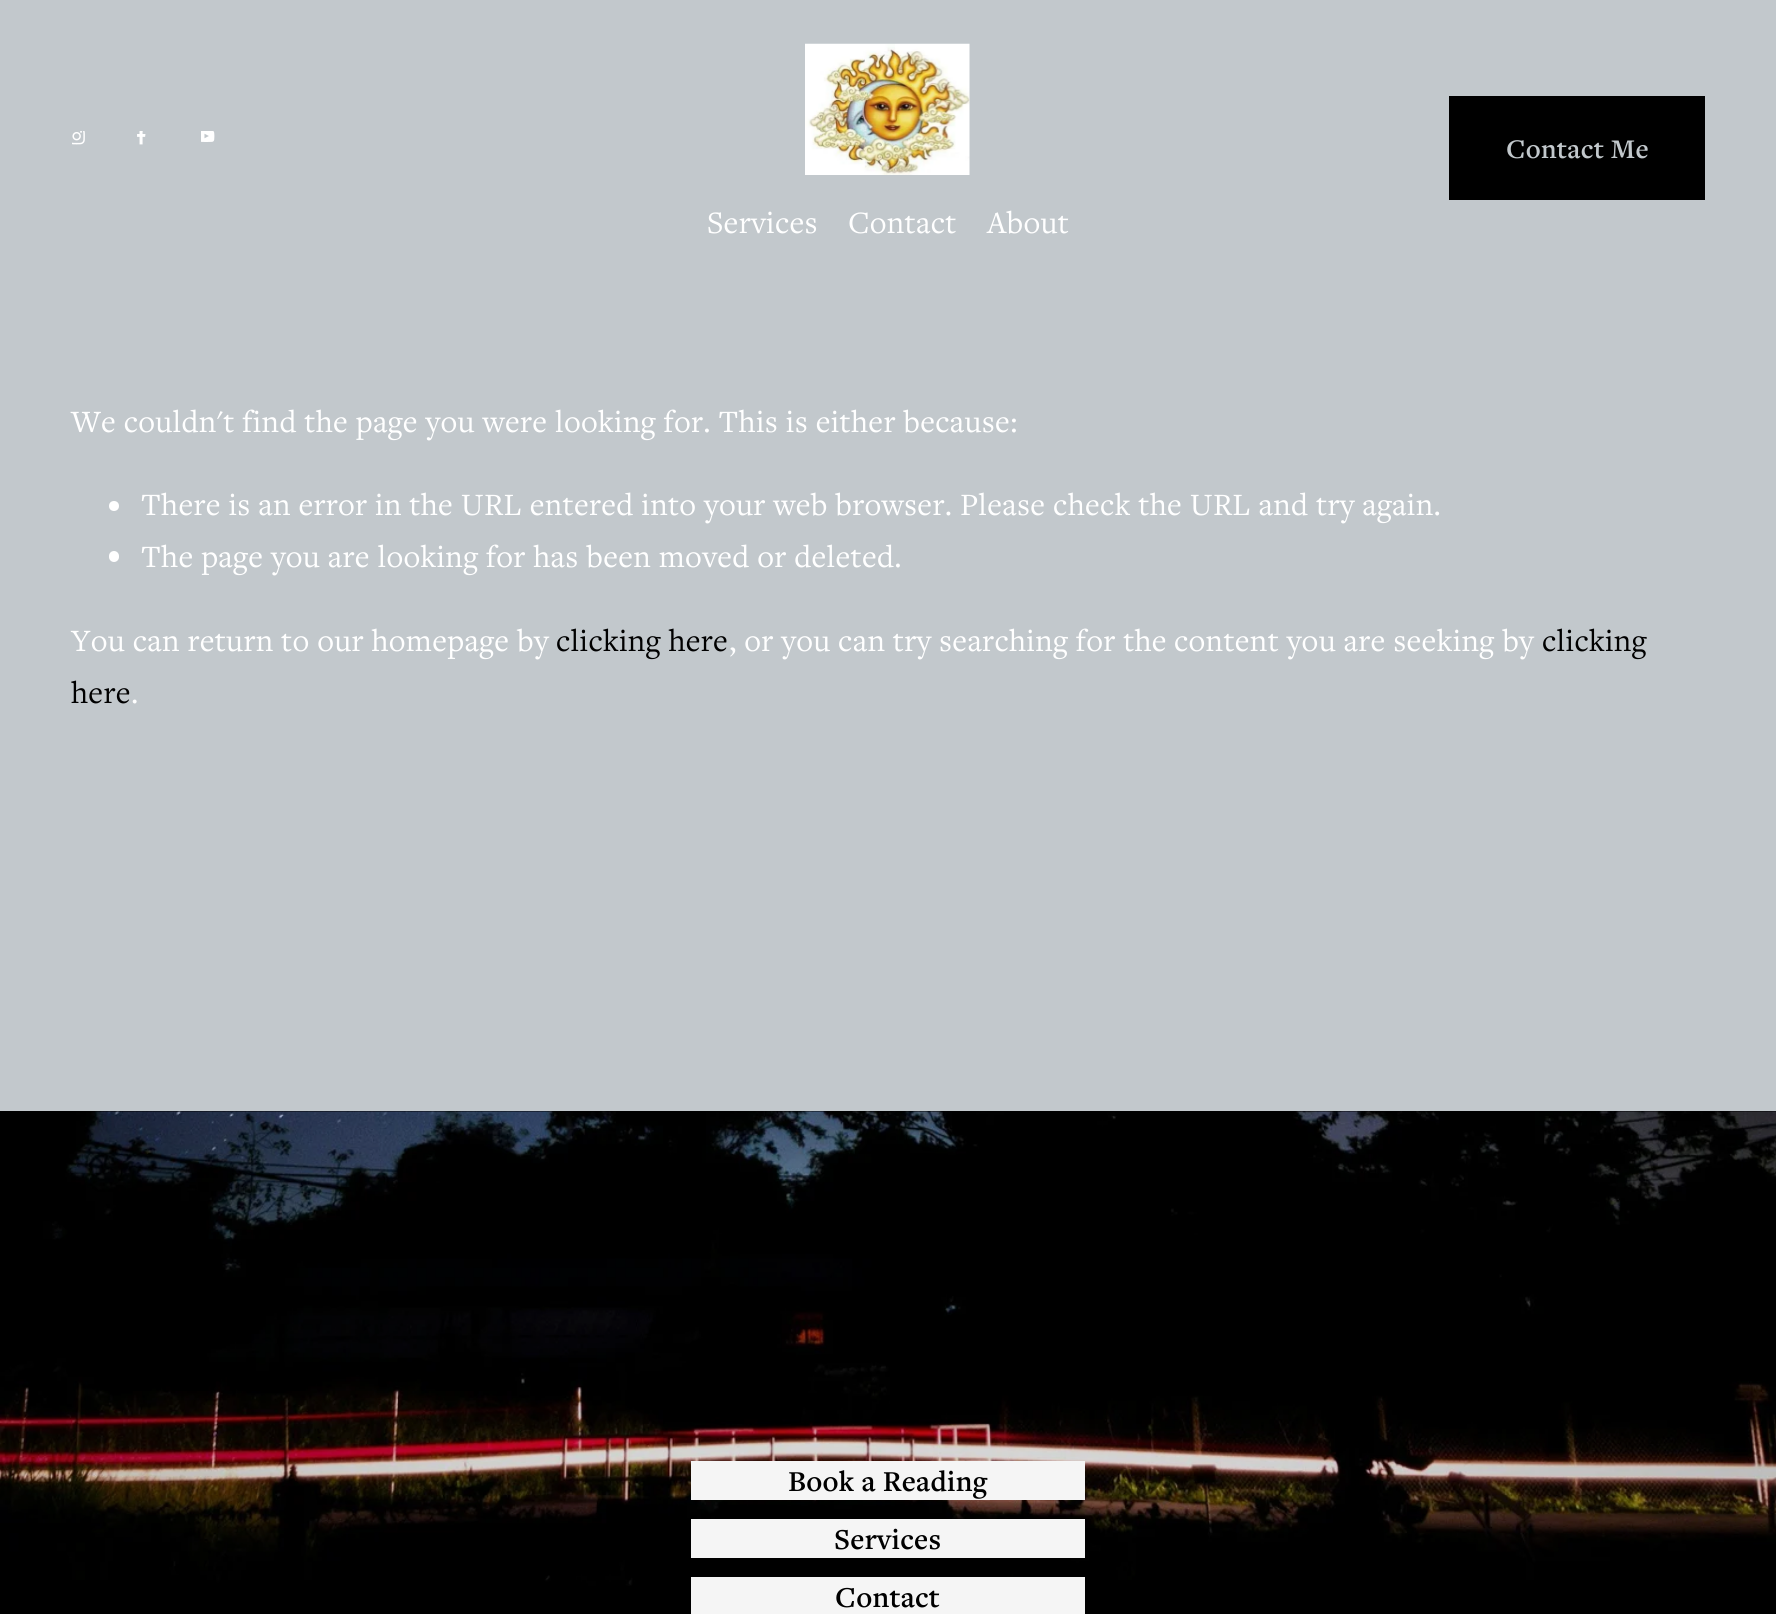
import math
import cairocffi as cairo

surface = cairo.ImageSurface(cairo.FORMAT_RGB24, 1776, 1614)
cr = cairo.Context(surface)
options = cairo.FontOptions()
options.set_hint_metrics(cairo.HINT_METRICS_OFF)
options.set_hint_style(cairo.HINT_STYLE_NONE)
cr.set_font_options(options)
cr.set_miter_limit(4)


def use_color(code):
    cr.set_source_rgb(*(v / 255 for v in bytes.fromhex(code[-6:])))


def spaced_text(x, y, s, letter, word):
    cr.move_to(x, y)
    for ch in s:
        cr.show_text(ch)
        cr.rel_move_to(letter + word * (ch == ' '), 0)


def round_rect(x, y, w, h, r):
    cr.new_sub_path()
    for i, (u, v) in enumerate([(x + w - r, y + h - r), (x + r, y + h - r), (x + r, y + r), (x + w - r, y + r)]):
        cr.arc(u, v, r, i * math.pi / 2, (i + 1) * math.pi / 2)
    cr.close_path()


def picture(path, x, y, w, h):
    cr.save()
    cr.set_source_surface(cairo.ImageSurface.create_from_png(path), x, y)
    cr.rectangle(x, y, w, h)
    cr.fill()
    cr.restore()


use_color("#c2c8cc")
cr.paint()
picture("img1.png", 72, 131, 13, 14)
picture("img2.png", 137, 131, 9, 14)
picture("img3.png", 201, 131, 14, 11)
use_color("#000000")
cr.rectangle(1449, 96, 256, 104)
cr.fill()
cr.select_font_face("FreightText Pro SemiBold")
cr.set_font_size(28)
use_color("#c2c8cc")
spaced_text(1506, 158, "Contact Me", 0.25, 0)
picture("img4.png", 805, 43, 165, 132)
cr.select_font_face("FreightText Pro")
cr.set_font_size(32.25)
use_color("#ffffff")
spaced_text(707, 233, "Services", 0.32, 0)
spaced_text(848, 233, "Contact", 0.32, 0)
spaced_text(987, 233, "About", 0.32, 0)
spaced_text(71, 432, "We couldn't find the page you were looking for. This is either because:", 0.32, 0)
cr.new_path()
cr.arc(114, 506, 5, 0, 2 * math.pi)
cr.fill()
spaced_text(141, 515, "There is an error in the URL entered into your web browser. Please check the URL and try again.", 0.32, 0)
round_rect(109, 551, 10, 11, 5)
cr.fill()
spaced_text(141, 567, "The page you are looking for has been moved or deleted.", 0.32, 0)
spaced_text(71, 651, "You can return to our homepage by", 0.32, 0)
use_color("#000000")
spaced_text(556, 651, "clicking here", 0.32, 0)
use_color("#ffffff")
spaced_text(729, 651, ", or you can try searching for the", 0.32, 0)
spaced_text(1174, 651, "content you are seeking by", 0.32, 0)
use_color("#000000")
spaced_text(1542, 651, "clicking", 0.32, 0)
spaced_text(71, 703, "here", 0.32, 0)
use_color("#ffffff")
spaced_text(131, 703, ".", 0.32, 0)
use_color("#000000")
cr.rectangle(0, 1111, 1776, 503)
cr.fill()
picture("img5.png", 0, 1111, 1776, 475)
use_color("#f5f5f5")
cr.rectangle(691, 1461, 394, 39)
cr.fill()
cr.select_font_face("FreightText Pro SemiBold")
cr.set_font_size(30)
use_color("#000000")
spaced_text(788, 1491, "Book a Reading", 0.25, 0)
use_color("#f5f5f5")
cr.rectangle(691, 1519, 394, 39)
cr.fill()
use_color("#000000")
spaced_text(834, 1549, "Services", 0.25, 0)
use_color("#f5f5f5")
cr.rectangle(691, 1577, 394, 37)
cr.fill()
use_color("#000000")
spaced_text(835, 1607, "Contact", 0.25, 0)
surface.write_to_png("result.png")
